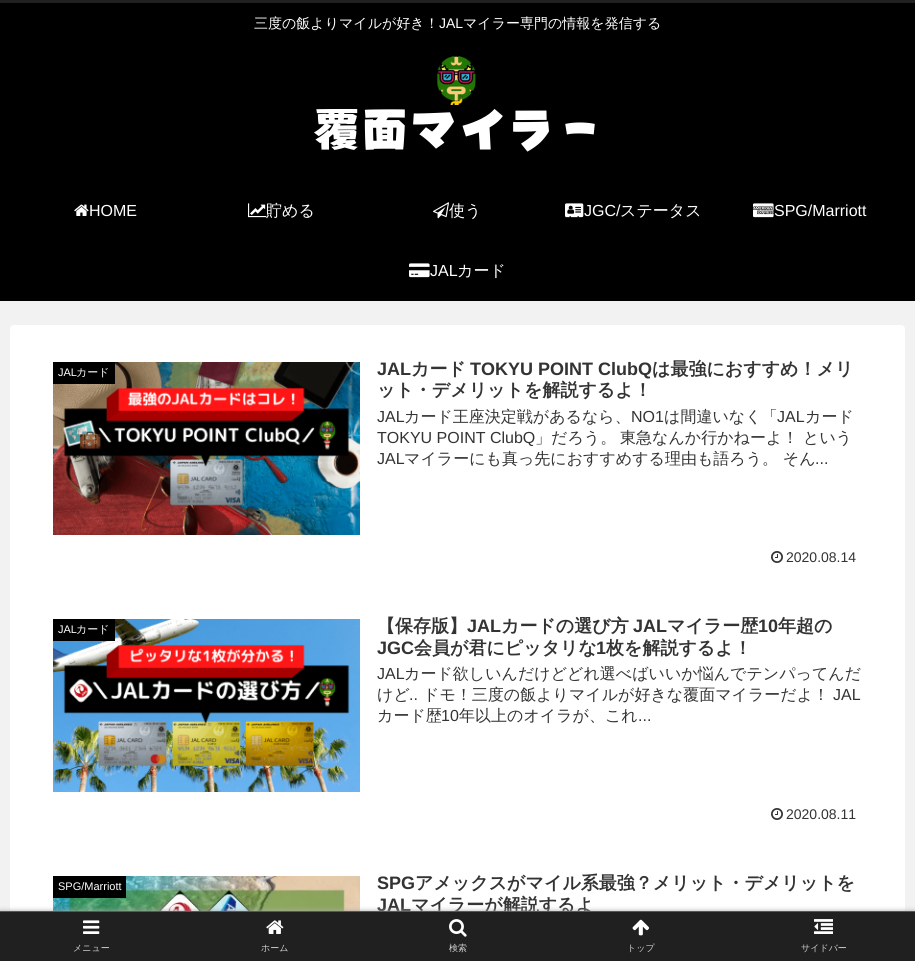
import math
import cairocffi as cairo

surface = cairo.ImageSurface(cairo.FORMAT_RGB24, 915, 961)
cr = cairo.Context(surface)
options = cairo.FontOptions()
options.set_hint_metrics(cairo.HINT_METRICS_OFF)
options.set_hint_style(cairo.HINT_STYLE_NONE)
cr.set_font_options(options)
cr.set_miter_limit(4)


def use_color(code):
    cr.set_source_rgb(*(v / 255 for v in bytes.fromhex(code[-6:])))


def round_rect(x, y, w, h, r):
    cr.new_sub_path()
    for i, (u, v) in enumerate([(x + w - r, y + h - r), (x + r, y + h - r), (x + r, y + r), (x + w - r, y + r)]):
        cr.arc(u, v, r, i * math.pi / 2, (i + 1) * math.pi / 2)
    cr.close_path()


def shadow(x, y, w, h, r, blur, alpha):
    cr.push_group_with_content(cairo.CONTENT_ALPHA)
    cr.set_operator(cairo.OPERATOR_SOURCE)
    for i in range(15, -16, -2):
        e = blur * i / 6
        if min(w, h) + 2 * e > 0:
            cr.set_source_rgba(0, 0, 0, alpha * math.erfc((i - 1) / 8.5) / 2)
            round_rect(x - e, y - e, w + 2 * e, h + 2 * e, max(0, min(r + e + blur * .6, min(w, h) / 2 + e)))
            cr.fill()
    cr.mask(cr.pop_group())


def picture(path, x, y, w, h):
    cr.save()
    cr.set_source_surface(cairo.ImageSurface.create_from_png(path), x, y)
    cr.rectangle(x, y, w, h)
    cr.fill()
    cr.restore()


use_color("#f2f2f2")
cr.paint()
use_color("#000000")
cr.rectangle(0, 3, 915, 298)
cr.fill()
use_color("#202020")
cr.rectangle(0, 0, 915, 3)
cr.fill()
cr.select_font_face("WenQuanYi Zen Hei Medium")
cr.set_font_size(14)
use_color("#ffffff")
cr.move_to(254, 28)
cr.show_text("三度の飯よりマイルが好き！")
cr.select_font_face("Liberation Sans")
cr.move_to(439, 28)
cr.show_text("JAL")
cr.select_font_face("WenQuanYi Zen Hei Medium")
cr.move_to(463, 28)
cr.show_text("マイラー専門の情報を発信する")
picture("img1.png", 314, 56, 281, 96)
picture("img2.png", 74, 204, 15, 12)
cr.select_font_face("Liberation Sans")
cr.set_font_size(16)
cr.move_to(89, 216)
cr.show_text("HOME")
picture("img3.png", 248, 203, 19, 15)
cr.select_font_face("WenQuanYi Zen Hei Medium")
cr.move_to(266, 216)
cr.show_text("貯める")
picture("img4.png", 433, 202, 16, 17)
cr.move_to(449, 216)
cr.show_text("使う")
picture("img5.png", 565, 203, 19, 15)
cr.select_font_face("Liberation Sans")
cr.move_to(584, 216)
cr.show_text("JGC/")
cr.select_font_face("WenQuanYi Zen Hei Medium")
cr.move_to(620, 216)
cr.show_text("ステータス")
picture("img6.png", 753, 203, 21, 15)
cr.select_font_face("Liberation Sans")
cr.move_to(774, 216)
cr.show_text("SPG/Marriott")
picture("img7.png", 409, 263, 21, 15)
cr.move_to(430, 276)
cr.show_text("JAL")
cr.select_font_face("WenQuanYi Zen Hei Medium")
cr.move_to(457, 276)
cr.show_text("カード")
round_rect(10, 325, 895, 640, 4)
cr.fill()
picture("img8.png", 53, 362, 307, 173)
use_color("#000000")
cr.rectangle(53, 362, 62, 22)
cr.fill()
cr.select_font_face("Liberation Sans")
cr.set_font_size(11)
use_color("#ffffff")
cr.move_to(58, 376)
cr.show_text("JAL")
cr.select_font_face("WenQuanYi Zen Hei Medium")
cr.move_to(76, 376)
cr.show_text("カード")
cr.select_font_face("Liberation Sans", cairo.FONT_SLANT_NORMAL, cairo.FONT_WEIGHT_BOLD)
cr.set_font_size(18)
use_color("#333333")
cr.move_to(377, 375)
cr.show_text("JAL")
cr.select_font_face("WenQuanYi Zen Hei", cairo.FONT_SLANT_NORMAL, cairo.FONT_WEIGHT_BOLD)
cr.move_to(411, 375)
cr.show_text("カード")
cr.select_font_face("Liberation Sans", cairo.FONT_SLANT_NORMAL, cairo.FONT_WEIGHT_BOLD)
cr.move_to(470, 375)
cr.show_text("TOKYU POINT ClubQ")
cr.select_font_face("WenQuanYi Zen Hei", cairo.FONT_SLANT_NORMAL, cairo.FONT_WEIGHT_BOLD)
cr.move_to(652, 375)
cr.show_text("は最強におすすめ！メリ")
cr.move_to(377, 396)
cr.show_text("ット・デメリットを解説するよ！")
cr.select_font_face("Liberation Sans")
cr.set_font_size(16)
cr.move_to(377, 422)
cr.show_text("JAL")
cr.select_font_face("WenQuanYi Zen Hei Medium")
cr.move_to(404, 422)
cr.show_text("カード王座決定戦があるなら、")
cr.select_font_face("Liberation Sans")
cr.move_to(631, 422)
cr.show_text("NO1")
cr.select_font_face("WenQuanYi Zen Hei Medium")
cr.move_to(664, 422)
cr.show_text("は間違いなく「")
cr.select_font_face("Liberation Sans")
cr.move_to(777, 422)
cr.show_text("JAL")
cr.select_font_face("WenQuanYi Zen Hei Medium")
cr.move_to(805, 422)
cr.show_text("カード")
cr.select_font_face("Liberation Sans")
cr.move_to(377, 443)
cr.show_text("TOKYU POINT ClubQ")
cr.select_font_face("WenQuanYi Zen Hei Medium")
cr.move_to(535, 443)
cr.show_text("」だろう。")
cr.move_to(620, 443)
cr.show_text("東急なんか行かねーよ！")
cr.move_to(803, 443)
cr.show_text("という")
cr.select_font_face("Liberation Sans")
cr.move_to(377, 464)
cr.show_text("JAL")
cr.select_font_face("WenQuanYi Zen Hei Medium")
cr.move_to(404, 464)
cr.show_text("マイラーにも真っ先におすすめする理由も語ろう。 そん")
cr.select_font_face("Liberation Sans")
cr.move_to(815, 464)
cr.show_text("...")
picture("img9.png", 771, 551, 12, 12)
cr.set_font_size(14)
cr.move_to(786, 562)
cr.show_text("2020.08.14")
picture("img10.png", 53, 619, 307, 173)
use_color("#000000")
cr.rectangle(53, 619, 62, 22)
cr.fill()
cr.set_font_size(11)
use_color("#ffffff")
cr.move_to(58, 633)
cr.show_text("JAL")
cr.select_font_face("WenQuanYi Zen Hei Medium")
cr.move_to(76, 633)
cr.show_text("カード")
cr.select_font_face("WenQuanYi Zen Hei", cairo.FONT_SLANT_NORMAL, cairo.FONT_WEIGHT_BOLD)
cr.set_font_size(18)
use_color("#333333")
cr.move_to(377, 632)
cr.show_text("【保存版】")
cr.select_font_face("Liberation Sans", cairo.FONT_SLANT_NORMAL, cairo.FONT_WEIGHT_BOLD)
cr.move_to(467, 632)
cr.show_text("JAL")
cr.select_font_face("WenQuanYi Zen Hei", cairo.FONT_SLANT_NORMAL, cairo.FONT_WEIGHT_BOLD)
cr.move_to(501, 632)
cr.show_text("カードの選び方")
cr.select_font_face("Liberation Sans", cairo.FONT_SLANT_NORMAL, cairo.FONT_WEIGHT_BOLD)
cr.move_to(633, 632)
cr.show_text("JAL")
cr.select_font_face("WenQuanYi Zen Hei", cairo.FONT_SLANT_NORMAL, cairo.FONT_WEIGHT_BOLD)
cr.move_to(667, 632)
cr.show_text("マイラー歴")
cr.select_font_face("Liberation Sans", cairo.FONT_SLANT_NORMAL, cairo.FONT_WEIGHT_BOLD)
cr.move_to(758, 632)
cr.show_text("10")
cr.select_font_face("WenQuanYi Zen Hei", cairo.FONT_SLANT_NORMAL, cairo.FONT_WEIGHT_BOLD)
cr.move_to(778, 632)
cr.show_text("年超の")
cr.select_font_face("Liberation Sans", cairo.FONT_SLANT_NORMAL, cairo.FONT_WEIGHT_BOLD)
cr.move_to(377, 654)
cr.show_text("JGC")
cr.select_font_face("WenQuanYi Zen Hei", cairo.FONT_SLANT_NORMAL, cairo.FONT_WEIGHT_BOLD)
cr.move_to(414, 654)
cr.show_text("会員が君にピッタリな")
cr.select_font_face("Liberation Sans", cairo.FONT_SLANT_NORMAL, cairo.FONT_WEIGHT_BOLD)
cr.move_to(596, 654)
cr.show_text("1")
cr.select_font_face("WenQuanYi Zen Hei", cairo.FONT_SLANT_NORMAL, cairo.FONT_WEIGHT_BOLD)
cr.move_to(606, 654)
cr.show_text("枚を解説するよ！")
cr.select_font_face("Liberation Sans")
cr.set_font_size(16)
cr.move_to(377, 679)
cr.show_text("JAL")
cr.select_font_face("WenQuanYi Zen Hei Medium")
cr.move_to(404, 679)
cr.show_text("カード欲しいんだけどどれ選べばいいか悩んでテンパってんだ")
cr.move_to(377, 700)
cr.show_text("けど")
cr.select_font_face("Liberation Sans")
cr.move_to(409, 700)
cr.show_text("..")
cr.select_font_face("WenQuanYi Zen Hei Medium")
cr.move_to(423, 700)
cr.show_text("ドモ！三度の飯よりマイルが好きな覆面マイラーだよ！")
cr.select_font_face("Liberation Sans")
cr.move_to(833, 700)
cr.show_text("JAL")
cr.select_font_face("WenQuanYi Zen Hei Medium")
cr.move_to(377, 721)
cr.show_text("カード歴")
cr.select_font_face("Liberation Sans")
cr.move_to(441, 721)
cr.show_text("10")
cr.select_font_face("WenQuanYi Zen Hei Medium")
cr.move_to(459, 721)
cr.show_text("年以上のオイラが、これ")
cr.select_font_face("Liberation Sans")
cr.move_to(638, 721)
cr.show_text("...")
picture("img9.png", 771, 808, 12, 12)
cr.set_font_size(14)
cr.move_to(786, 819)
cr.show_text("2020.08.11")
picture("img11.png", 53, 876, 307, 35)
use_color("#000000")
cr.rectangle(53, 876, 73, 22)
cr.fill()
cr.set_font_size(11)
use_color("#ffffff")
cr.move_to(58, 890)
cr.show_text("SPG/Marriott")
cr.select_font_face("Liberation Sans", cairo.FONT_SLANT_NORMAL, cairo.FONT_WEIGHT_BOLD)
cr.set_font_size(18)
use_color("#333333")
cr.move_to(377, 889)
cr.show_text("SPG")
cr.select_font_face("WenQuanYi Zen Hei", cairo.FONT_SLANT_NORMAL, cairo.FONT_WEIGHT_BOLD)
cr.move_to(415, 889)
cr.show_text("アメックスがマイル系最強？メリット・デメリットを")
cr.select_font_face("Liberation Sans", cairo.FONT_SLANT_NORMAL, cairo.FONT_WEIGHT_BOLD)
cr.move_to(377, 911)
cr.show_text("JAL")
cr.select_font_face("WenQuanYi Zen Hei", cairo.FONT_SLANT_NORMAL, cairo.FONT_WEIGHT_BOLD)
cr.move_to(411, 911)
cr.show_text("マイラーが解説するよ")
use_color("#a9a9a9")
shadow(0, 911, 915, 50, 0, 2.5, 1)
use_color("#202020")
cr.rectangle(0, 912, 915, 49)
cr.fill()
use_color("#595857")
cr.rectangle(0, 911, 915, 1)
cr.fill()
picture("img12.png", 83, 920, 17, 14)
cr.select_font_face("WenQuanYi Zen Hei Medium")
cr.set_font_size(9)
use_color("#d2d2d2")
cr.move_to(73, 951)
cr.show_text("メニュー")
picture("img13.png", 266, 920, 18, 14)
cr.move_to(261, 951)
cr.show_text("ホーム")
picture("img14.png", 449, 919, 18, 18)
cr.move_to(449, 951)
cr.show_text("検索")
picture("img15.png", 632, 919, 17, 17)
cr.move_to(627, 951)
cr.show_text("トップ")
picture("img16.png", 814, 919, 19, 15)
cr.move_to(801, 951)
cr.show_text("サイドバー")
surface.write_to_png("result.png")
